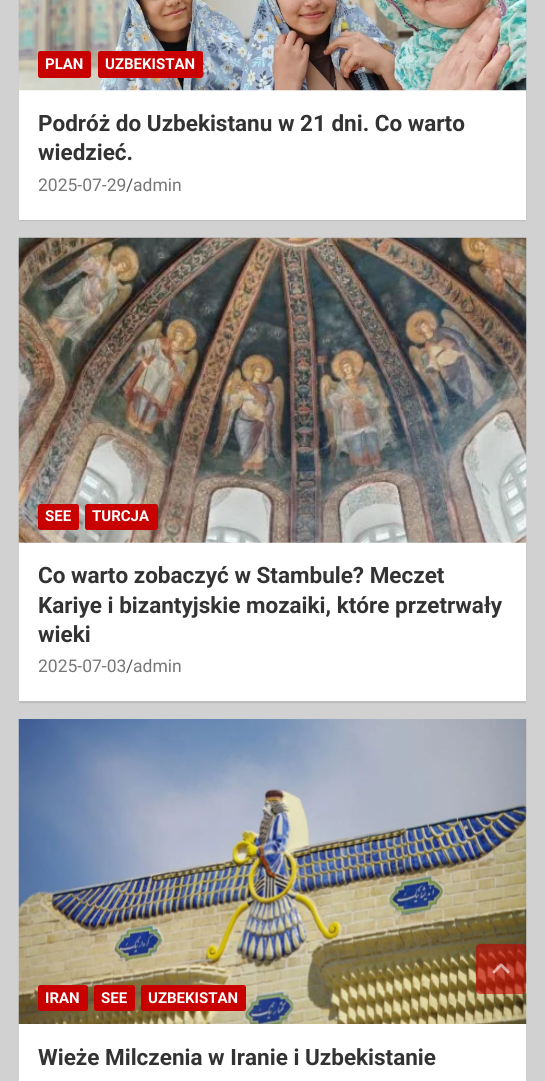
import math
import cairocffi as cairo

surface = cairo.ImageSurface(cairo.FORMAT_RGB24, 545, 1081)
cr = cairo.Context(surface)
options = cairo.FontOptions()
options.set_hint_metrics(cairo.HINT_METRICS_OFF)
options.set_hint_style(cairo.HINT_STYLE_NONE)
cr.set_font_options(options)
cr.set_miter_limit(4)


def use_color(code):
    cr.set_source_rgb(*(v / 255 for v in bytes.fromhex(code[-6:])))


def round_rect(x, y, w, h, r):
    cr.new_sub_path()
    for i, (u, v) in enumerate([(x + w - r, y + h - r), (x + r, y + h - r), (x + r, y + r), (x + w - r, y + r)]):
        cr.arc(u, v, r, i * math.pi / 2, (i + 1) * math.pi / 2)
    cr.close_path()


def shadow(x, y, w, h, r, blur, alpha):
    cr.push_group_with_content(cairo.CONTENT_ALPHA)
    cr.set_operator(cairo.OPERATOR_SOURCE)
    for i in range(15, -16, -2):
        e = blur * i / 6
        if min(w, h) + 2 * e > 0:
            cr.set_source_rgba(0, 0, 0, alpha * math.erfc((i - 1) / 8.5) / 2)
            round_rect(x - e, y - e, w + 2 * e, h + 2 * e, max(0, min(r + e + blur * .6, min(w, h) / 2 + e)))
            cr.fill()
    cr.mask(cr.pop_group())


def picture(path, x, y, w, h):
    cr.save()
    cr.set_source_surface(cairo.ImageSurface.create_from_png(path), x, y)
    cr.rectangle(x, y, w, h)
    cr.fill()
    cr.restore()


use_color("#d1d1d1")
cr.paint()
use_color("#000000")
shadow(19, -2, 507, 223, 0, 0.5, 0.1)
use_color("#ffffff")
cr.rectangle(19, 90, 507, 130)
cr.fill()
picture("img1.png", 18, 0, 509, 91)
use_color("#c80000")
round_rect(38, 51, 53, 27, 2.5)
cr.fill()
cr.select_font_face("Roboto", cairo.FONT_SLANT_NORMAL, cairo.FONT_WEIGHT_BOLD)
cr.set_font_size(15)
use_color("#ffffff")
cr.move_to(45, 69)
cr.show_text("PLAN")
use_color("#c80000")
round_rect(98, 51, 105, 27, 2.5)
cr.fill()
use_color("#ffffff")
cr.move_to(105, 69)
cr.show_text("UZBEKISTAN")
cr.set_font_size(22.5)
use_color("#333333")
cr.move_to(38, 131)
cr.show_text("Podróż do Uzbekistanu w 21 dni. Co warto")
cr.move_to(38, 160)
cr.show_text("wiedzieć.")
cr.select_font_face("Roboto")
cr.set_font_size(17.5)
use_color("#777777")
cr.move_to(38, 191)
cr.show_text("2025-07-29")
use_color("#555555")
cr.move_to(126, 191)
cr.show_text("/")
use_color("#777777")
cr.move_to(133, 191)
cr.show_text("admin")
use_color("#000000")
shadow(19, 239, 507, 464, 0, 0.5, 0.1)
use_color("#ffffff")
cr.rectangle(19, 542, 507, 159)
cr.fill()
picture("img2.png", 18, 237, 509, 306)
use_color("#c80000")
round_rect(38, 504, 41, 26, 2.5)
cr.fill()
cr.select_font_face("Roboto", cairo.FONT_SLANT_NORMAL, cairo.FONT_WEIGHT_BOLD)
cr.set_font_size(15)
use_color("#ffffff")
cr.move_to(45, 521)
cr.show_text("SEE")
use_color("#c80000")
round_rect(85, 504, 73, 26, 2.5)
cr.fill()
use_color("#ffffff")
cr.move_to(92, 521)
cr.show_text("TURCJA")
cr.set_font_size(22.5)
use_color("#333333")
cr.move_to(38, 583)
cr.show_text("Co warto zobaczyć w Stambule? Meczet")
cr.move_to(38, 613)
cr.show_text("Kariye i bizantyjskie mozaiki, które przetrwały")
cr.move_to(38, 642)
cr.show_text("wieki")
cr.select_font_face("Roboto")
cr.set_font_size(17.5)
use_color("#777777")
cr.move_to(38, 672)
cr.show_text("2025-07-03")
use_color("#555555")
cr.move_to(126, 672)
cr.show_text("/")
use_color("#777777")
cr.move_to(133, 672)
cr.show_text("admin")
use_color("#ffffff")
cr.rectangle(19, 1024, 507, 57)
cr.fill()
picture("img3.png", 18, 719, 509, 305)
use_color("#c80000")
round_rect(38, 985, 50, 26, 2.5)
cr.fill()
cr.select_font_face("Roboto", cairo.FONT_SLANT_NORMAL, cairo.FONT_WEIGHT_BOLD)
cr.set_font_size(15)
use_color("#ffffff")
cr.move_to(45, 1003)
cr.show_text("IRAN")
use_color("#c80000")
round_rect(94, 985, 41, 26, 2.5)
cr.fill()
use_color("#ffffff")
cr.move_to(101, 1003)
cr.show_text("SEE")
use_color("#c80000")
round_rect(141, 985, 105, 26, 2.5)
cr.fill()
use_color("#ffffff")
cr.move_to(148, 1003)
cr.show_text("UZBEKISTAN")
cr.set_font_size(22.5)
use_color("#333333")
cr.move_to(38, 1065)
cr.show_text("Wieże Milczenia w Iranie i Uzbekistanie")
cr.set_source_rgba(0.784, 0, 0, 0.6)
round_rect(476, 944, 50, 50, 4)
cr.fill()
picture("img4.png", 492, 963, 18, 11)
surface.write_to_png("result.png")
